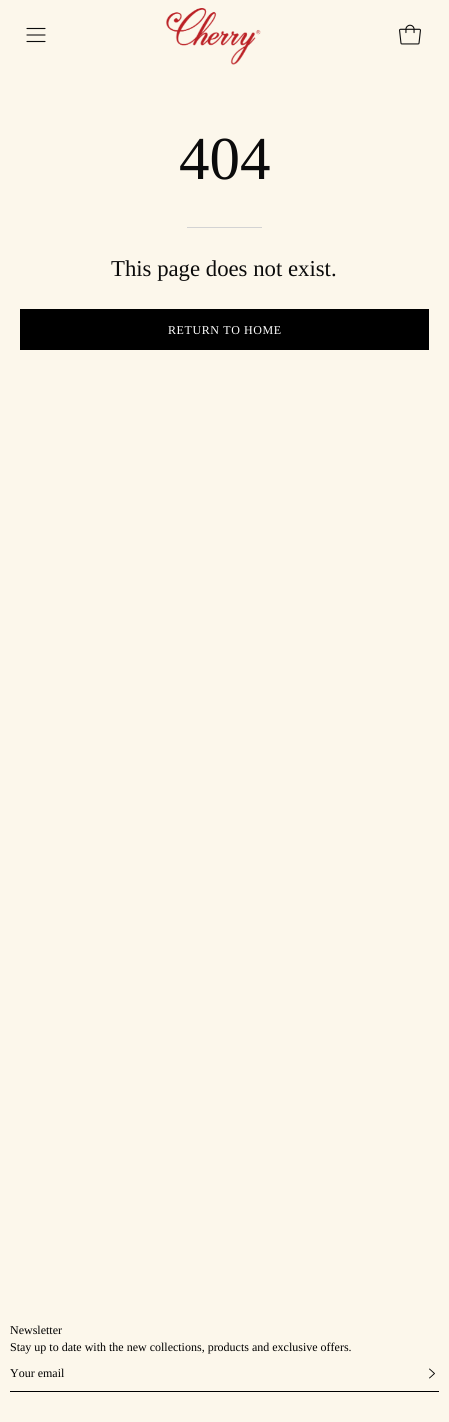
import math
import cairocffi as cairo

surface = cairo.ImageSurface(cairo.FORMAT_RGB24, 449, 1422)
cr = cairo.Context(surface)
options = cairo.FontOptions()
options.set_hint_metrics(cairo.HINT_METRICS_OFF)
options.set_hint_style(cairo.HINT_STYLE_NONE)
cr.set_font_options(options)
cr.set_miter_limit(4)


def use_color(code):
    cr.set_source_rgb(*(v / 255 for v in bytes.fromhex(code[-6:])))


def spaced_text(x, y, s, letter, word):
    cr.move_to(x, y)
    for ch in s:
        cr.show_text(ch)
        cr.rel_move_to(letter + word * (ch == ' '), 0)


def picture(path, x, y, w, h):
    cr.save()
    cr.set_source_surface(cairo.ImageSurface.create_from_png(path), x, y)
    cr.rectangle(x, y, w, h)
    cr.fill()
    cr.restore()


use_color("#fcf7eb")
cr.paint()
picture("img1.png", 166, 8, 95, 57)
cr.new_path()
cr.move_to(27, 35)
cr.line_to(45, 35)
cr.move_to(27, 28.5)
cr.line_to(45, 28.5)
cr.move_to(27, 41.5)
cr.line_to(45, 41.5)
use_color("#0b0b0b")
cr.set_line_width(1.1)
cr.set_line_cap(cairo.LINE_CAP_ROUND)
cr.set_line_join(cairo.LINE_JOIN_ROUND)
cr.stroke()
picture("img2.png", 399, 24, 22, 21)
cr.select_font_face("Liberation Serif")
cr.set_font_size(61)
cr.move_to(179, 179)
cr.show_text("404")
use_color("#d3d3d3")
cr.rectangle(187, 227, 75, 1)
cr.fill()
cr.set_font_size(22.75)
use_color("#0b0b0b")
cr.move_to(111, 276)
cr.show_text("This page does not exist.")
use_color("#000000")
cr.rectangle(20, 309, 409, 41)
cr.fill()
cr.set_font_size(12)
use_color("#ffffff")
spaced_text(168, 334, "RETURN TO HOME", 0.6, 0)
use_color("#000000")
cr.move_to(10, 1334)
cr.show_text("Newsletter")
cr.move_to(10, 1351)
cr.show_text("Stay up to date with the new collections, products and exclusive offers.")
cr.rectangle(10, 1391, 429, 1)
cr.fill()
cr.move_to(10, 1377)
cr.show_text("Your email")
cr.new_path()
cr.move_to(429.5, 1369)
cr.line_to(434.5, 1373.5)
cr.line_to(429.5, 1378)
cr.set_line_width(0.9)
cr.stroke()
surface.write_to_png("result.png")
